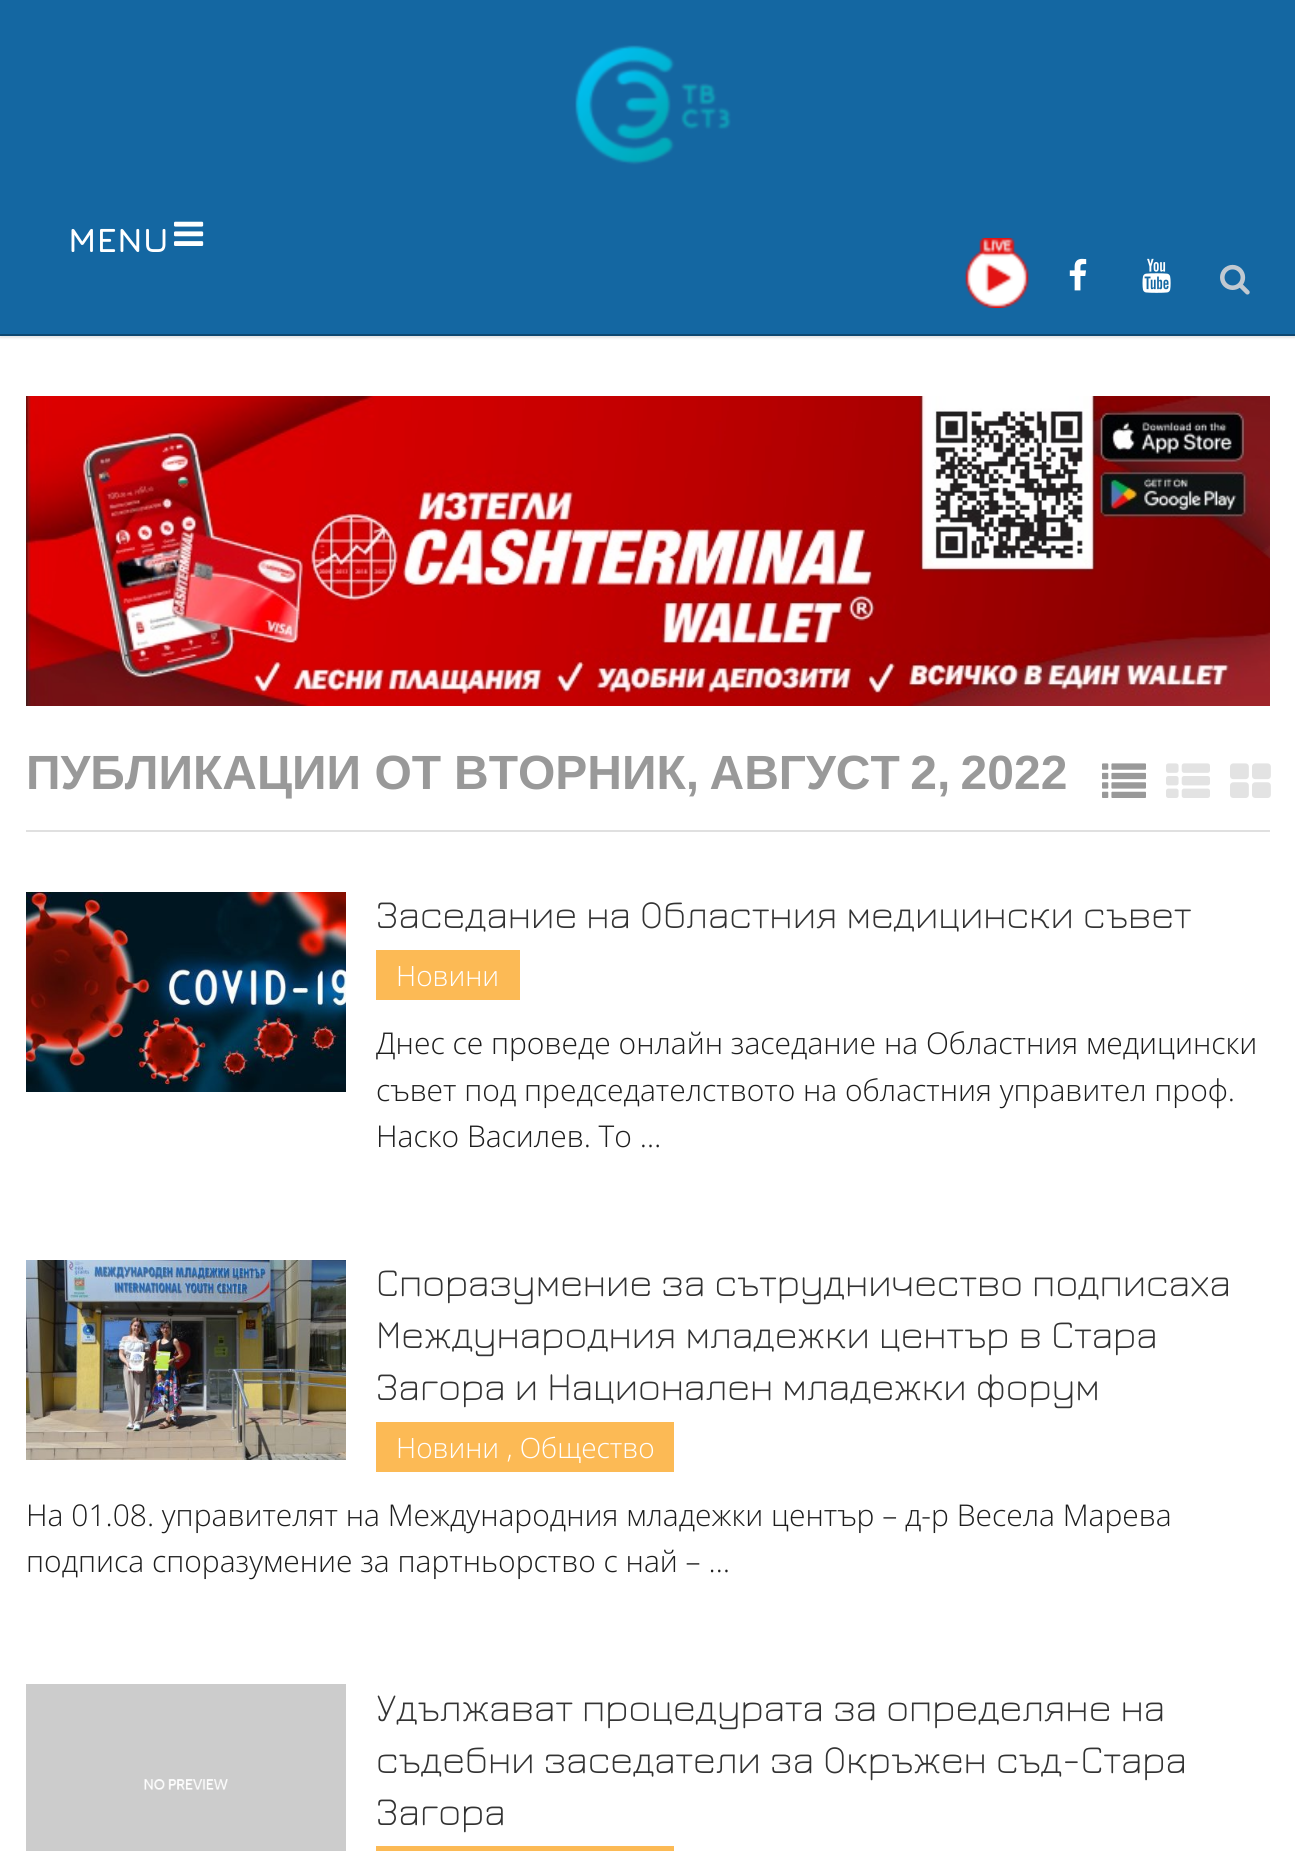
import math
import cairocffi as cairo

surface = cairo.ImageSurface(cairo.FORMAT_RGB24, 1295, 1851)
cr = cairo.Context(surface)
options = cairo.FontOptions()
options.set_hint_metrics(cairo.HINT_METRICS_OFF)
options.set_hint_style(cairo.HINT_STYLE_NONE)
cr.set_font_options(options)
cr.set_miter_limit(4)


def use_color(code):
    cr.set_source_rgb(*(v / 255 for v in bytes.fromhex(code[-6:])))


def spaced_text(x, y, s, letter, word):
    cr.move_to(x, y)
    for ch in s:
        cr.show_text(ch)
        cr.rel_move_to(letter + word * (ch == ' '), 0)


def round_rect(x, y, w, h, r):
    cr.new_sub_path()
    for i, (u, v) in enumerate([(x + w - r, y + h - r), (x + r, y + h - r), (x + r, y + r), (x + w - r, y + r)]):
        cr.arc(u, v, r, i * math.pi / 2, (i + 1) * math.pi / 2)
    cr.close_path()


def shadow(x, y, w, h, r, blur, alpha):
    cr.push_group_with_content(cairo.CONTENT_ALPHA)
    cr.set_operator(cairo.OPERATOR_SOURCE)
    for i in range(15, -16, -2):
        e = blur * i / 6
        if min(w, h) + 2 * e > 0:
            cr.set_source_rgba(0, 0, 0, alpha * math.erfc((i - 1) / 8.5) / 2)
            round_rect(x - e, y - e, w + 2 * e, h + 2 * e, max(0, min(r + e + blur * .6, min(w, h) / 2 + e)))
            cr.fill()
    cr.mask(cr.pop_group())


def picture(path, x, y, w, h):
    cr.save()
    cr.set_source_surface(cairo.ImageSurface.create_from_png(path), x, y)
    cr.rectangle(x, y, w, h)
    cr.fill()
    cr.restore()


use_color("#ffffff")
cr.paint()
use_color("#000000")
shadow(0, 2, 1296, 336, 0, 1, 0.1)
use_color("#1467a2")
cr.rectangle(0, 0, 1295, 334)
cr.fill()
use_color("#0e4871")
cr.rectangle(0, 334, 1295, 2)
cr.fill()
picture("img1.png", 575, 45, 156, 120)
cr.select_font_face("Jura", cairo.FONT_SLANT_NORMAL, cairo.FONT_WEIGHT_BOLD)
cr.set_font_size(34)
use_color("#ffffff")
cr.move_to(68, 252)
cr.show_text("MENU")
picture("img2.png", 174, 221, 30, 25)
picture("img3.png", 965, 238, 64, 70)
picture("img4.png", 1069, 258, 18, 33)
picture("img5.png", 1142, 258, 29, 35)
picture("img6.png", 1220, 264, 30, 31)
picture("img7.png", 26, 396, 1244, 310)
cr.select_font_face("Liberation Sans", cairo.FONT_SLANT_NORMAL, cairo.FONT_WEIGHT_BOLD)
cr.set_font_size(48)
use_color("#999999")
cr.move_to(26, 789)
cr.show_text("ПУБЛИКАЦИИ ОТ")
spaced_text(454, 789, "ВТОРНИК, АВГУСТ 2, 2022", 0, -3)
picture("img8.png", 1102, 763, 44, 35)
picture("img9.png", 1166, 763, 44, 35)
picture("img10.png", 1230, 763, 41, 35)
use_color("#e0e0e0")
cr.rectangle(26, 830, 1244, 2)
cr.fill()
picture("img11.png", 26, 892, 320, 200)
cr.select_font_face("Jura Light")
cr.set_font_size(40)
use_color("#333333")
cr.move_to(376, 928)
cr.show_text("Заседание на Областния медицински съвет")
use_color("#fcba55")
cr.rectangle(376, 950, 144, 50)
cr.fill()
cr.select_font_face("Open Sans Light")
cr.set_font_size(28)
use_color("#ffffff")
cr.move_to(396, 986)
cr.show_text("Новини")
cr.set_font_size(30)
use_color("#1e1e1e")
cr.move_to(376, 1054)
cr.show_text("Днес се проведе онлайн заседание на Областния медицински")
cr.move_to(376, 1101)
cr.show_text("съвет под председателството на областния управител проф.")
cr.move_to(376, 1147)
cr.show_text("Наско Василев. То …")
picture("img12.png", 26, 1260, 320, 200)
cr.select_font_face("Jura Light")
cr.set_font_size(40)
use_color("#333333")
cr.move_to(376, 1296)
cr.show_text("Споразумение за сътрудничество подписаха")
cr.move_to(376, 1348)
cr.show_text("Международния младежки център в Стара")
cr.move_to(376, 1400)
cr.show_text("Загора и Национален младежки форум")
use_color("#fcba55")
cr.rectangle(376, 1422, 298, 50)
cr.fill()
cr.select_font_face("Open Sans Light")
cr.set_font_size(28)
use_color("#ffffff")
cr.move_to(396, 1458)
cr.show_text("Новини , Общество")
cr.set_font_size(30)
use_color("#1e1e1e")
cr.move_to(26, 1526)
cr.show_text("На 01.08. управителят на Международния младежки център – д-р Весела Марева")
cr.move_to(26, 1572)
cr.show_text("подписа споразумение за партньорство с най – …")
picture("img13.png", 26, 1684, 320, 167)
cr.select_font_face("Jura Light")
cr.set_font_size(40)
use_color("#333333")
cr.move_to(376, 1721)
cr.show_text("Удължават процедурата за определяне на")
cr.move_to(376, 1773)
cr.show_text("съдебни заседатели за Окръжен съд-Стара")
cr.move_to(376, 1825)
cr.show_text("Загора")
use_color("#fcba55")
cr.rectangle(376, 1846, 298, 5)
cr.fill()
surface.write_to_png("result.png")
